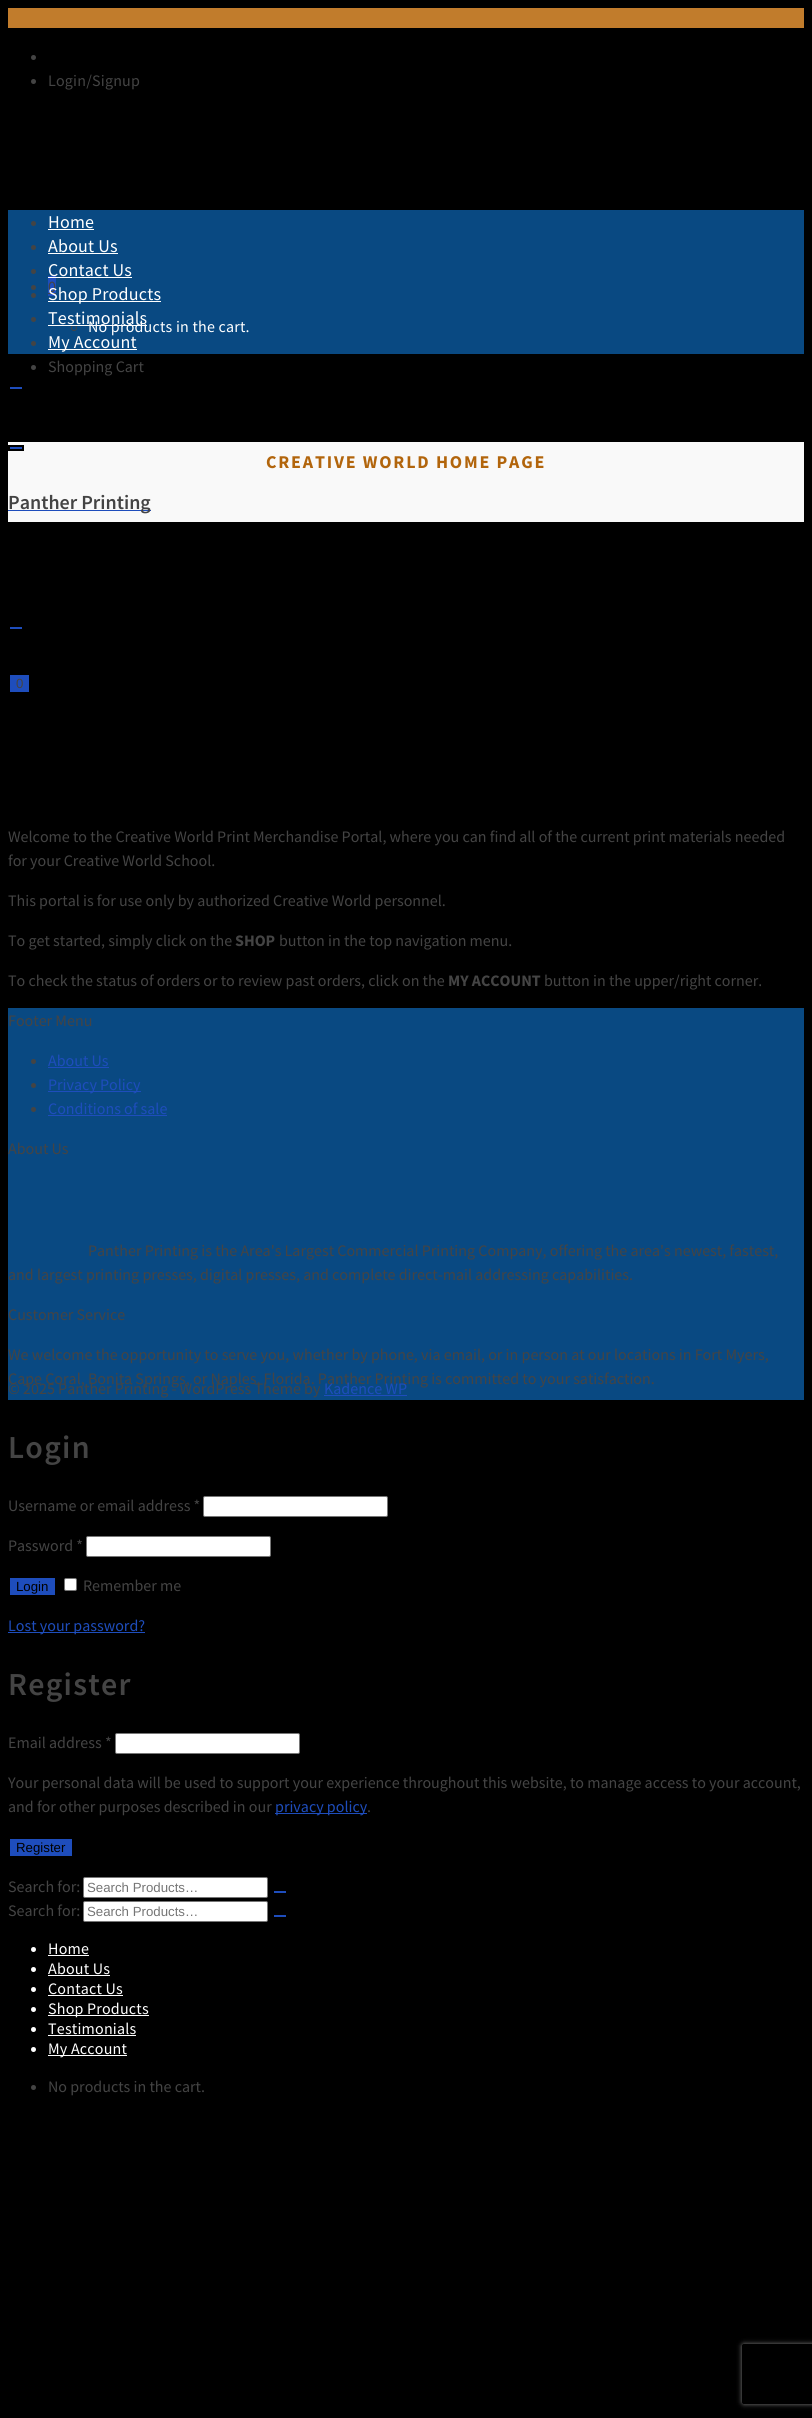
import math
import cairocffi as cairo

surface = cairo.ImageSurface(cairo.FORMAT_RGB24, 812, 2418)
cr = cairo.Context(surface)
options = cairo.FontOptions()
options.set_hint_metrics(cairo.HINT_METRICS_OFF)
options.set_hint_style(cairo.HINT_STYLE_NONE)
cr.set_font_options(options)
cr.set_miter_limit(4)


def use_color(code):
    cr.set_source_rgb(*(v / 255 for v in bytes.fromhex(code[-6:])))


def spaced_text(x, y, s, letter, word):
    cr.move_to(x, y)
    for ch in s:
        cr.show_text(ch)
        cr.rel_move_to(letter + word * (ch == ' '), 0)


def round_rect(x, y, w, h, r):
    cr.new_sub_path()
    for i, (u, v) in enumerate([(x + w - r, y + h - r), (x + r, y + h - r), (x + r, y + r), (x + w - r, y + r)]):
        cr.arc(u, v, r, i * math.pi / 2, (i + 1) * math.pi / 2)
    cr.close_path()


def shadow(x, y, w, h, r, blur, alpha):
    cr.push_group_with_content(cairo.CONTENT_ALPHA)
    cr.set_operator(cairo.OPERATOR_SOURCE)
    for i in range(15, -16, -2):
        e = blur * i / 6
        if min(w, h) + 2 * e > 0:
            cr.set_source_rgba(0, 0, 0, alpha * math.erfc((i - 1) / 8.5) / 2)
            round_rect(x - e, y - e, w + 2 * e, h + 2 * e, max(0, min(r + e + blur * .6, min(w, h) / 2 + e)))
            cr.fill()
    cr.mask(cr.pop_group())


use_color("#000000")
cr.paint()
use_color("#c17c2c")
cr.rectangle(8, 8, 796, 20)
cr.fill()
use_color("#444444")
cr.arc(33.5, 57.5, 2.5, 0, 2 * math.pi)
cr.fill()
cr.arc(33.5, 81.5, 2.5, 0, 2 * math.pi)
cr.fill()
cr.select_font_face("Source Sans Pro")
cr.set_font_size(16)
spaced_text(48, 86, "Login/Signup", 0.2, 0)
use_color("#094982")
cr.rectangle(8, 210, 796, 144)
cr.fill()
use_color("#444444")
cr.arc(33.5, 287.5, 2.5, 0, 2 * math.pi)
cr.fill()
use_color("#1e4dbc")
cr.rectangle(48, 276, 8, 20)
cr.fill()
use_color("#444444")
spaced_text(48, 292, "0", 0.2, 0)
cr.rectangle(48, 293, 8, 1)
cr.fill()
cr.arc(74, 328, 2.5, 0, 2 * math.pi)
cr.set_line_width(1)
cr.stroke()
use_color("#ffffff")
spaced_text(88, 332, "No products in the cart.", 0.2, 0)
use_color("#444444")
cr.new_path()
cr.arc(33.5, 367.5, 2.5, 0, 2 * math.pi)
cr.fill()
cr.move_to(48, 372)
cr.show_text("Shopping Cart")
cr.new_path()
cr.arc(33.5, 223.5, 2.5, 0, 2 * math.pi)
cr.fill()
cr.set_font_size(18)
use_color("#ffffff")
spaced_text(48, 228, "Home", 0.2, 0)
cr.rectangle(48, 229, 46, 1)
cr.fill()
use_color("#444444")
cr.arc(33.5, 247.5, 2.5, 0, 2 * math.pi)
cr.fill()
use_color("#ffffff")
spaced_text(48, 252, "About Us", 0.2, 0)
cr.rectangle(48, 253, 70, 1)
cr.fill()
use_color("#444444")
cr.arc(33.5, 271.5, 2.5, 0, 2 * math.pi)
cr.fill()
use_color("#ffffff")
spaced_text(48, 276, "Contact Us", 0.2, 0)
cr.rectangle(48, 277, 84, 1)
cr.fill()
use_color("#444444")
cr.arc(33.5, 295.5, 2.5, 0, 2 * math.pi)
cr.fill()
use_color("#ffffff")
cr.rectangle(48, 301, 113, 1)
cr.fill()
spaced_text(48, 300, "Shop Products", 0.2, 0)
use_color("#444444")
cr.new_path()
cr.arc(33.5, 319.5, 2.5, 0, 2 * math.pi)
cr.fill()
use_color("#ffffff")
spaced_text(48, 324, "Testimonials", 0.2, 0)
cr.rectangle(48, 325, 99, 1)
cr.fill()
use_color("#444444")
cr.arc(33.5, 343.5, 2.5, 0, 2 * math.pi)
cr.fill()
use_color("#ffffff")
cr.rectangle(48, 349, 89, 1)
cr.fill()
spaced_text(48, 348, "My Account", 0.2, 0)
use_color("#f9f9f9")
cr.rectangle(8, 442, 796, 80)
cr.fill()
cr.select_font_face("Source Sans Pro", cairo.FONT_SLANT_NORMAL, cairo.FONT_WEIGHT_BOLD)
use_color("#b2650c")
spaced_text(266, 468, "CREATIVE WORLD HOME PAGE", 1.8, 0)
cr.select_font_face("Source Sans Pro")
cr.set_font_size(16)
use_color("#444444")
cr.move_to(8, 842)
cr.show_text("Welcome to the Creative World Print Merchandise Portal, where you can find all of the current print materials needed")
cr.move_to(8, 866)
cr.show_text("for your Creative World School.")
cr.move_to(8, 906)
cr.show_text("This portal is for use only by authorized Creative World personnel.")
cr.move_to(8, 946)
cr.show_text("To get started, simply click on the")
cr.select_font_face("Source Sans Pro", cairo.FONT_SLANT_NORMAL, cairo.FONT_WEIGHT_BOLD)
cr.move_to(235, 946)
cr.show_text("SHOP")
cr.select_font_face("Source Sans Pro")
cr.move_to(279, 946)
cr.show_text("button in the top navigation menu.")
cr.move_to(8, 986)
cr.show_text("To check the status of orders or to review past orders, click on the")
cr.select_font_face("Source Sans Pro", cairo.FONT_SLANT_NORMAL, cairo.FONT_WEIGHT_BOLD)
cr.move_to(448, 986)
cr.show_text("MY ACCOUNT")
cr.select_font_face("Source Sans Pro")
cr.move_to(544, 986)
cr.show_text("button in the upper/right corner.")
use_color("#1e4dbc")
cr.rectangle(9, 386, 14, 4)
cr.fill_preserve()
use_color("#000000")
cr.set_line_width(2)
cr.stroke()
use_color("#1e4dbc")
cr.rectangle(9, 446, 14, 4)
cr.fill_preserve()
use_color("#000000")
cr.stroke()
use_color("#1e4dbc")
cr.rectangle(8, 510, 143, 1)
cr.fill()
cr.select_font_face("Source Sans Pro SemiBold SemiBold")
cr.set_font_size(20)
use_color("#444444")
cr.move_to(8, 509)
cr.show_text("Panther Printing")
use_color("#1e4dbc")
cr.rectangle(9, 626, 14, 4)
cr.fill_preserve()
use_color("#000000")
cr.stroke()
use_color("#1e4dbc")
cr.rectangle(10, 675, 19, 17)
cr.fill()
cr.select_font_face("Liberation Sans")
cr.set_font_size(13.25)
use_color("#444444")
cr.move_to(16, 688)
cr.show_text("0")
use_color("#094982")
cr.rectangle(8, 1008, 796, 392)
cr.fill()
cr.select_font_face("Source Sans Pro")
cr.set_font_size(16)
use_color("#444444")
cr.move_to(8, 1026)
cr.show_text("Footer Menu")
cr.new_path()
cr.arc(33.5, 1061.5, 2.5, 0, 2 * math.pi)
cr.fill()
use_color("#1e4dbc")
cr.move_to(48, 1066)
cr.show_text("About Us")
cr.rectangle(48, 1067, 61, 1)
cr.fill()
use_color("#444444")
cr.arc(33.5, 1085.5, 2.5, 0, 2 * math.pi)
cr.fill()
use_color("#1e4dbc")
cr.rectangle(48, 1091, 93, 1)
cr.fill()
cr.move_to(48, 1090)
cr.show_text("Privacy Policy")
use_color("#444444")
cr.new_path()
cr.arc(33.5, 1109.5, 2.5, 0, 2 * math.pi)
cr.fill()
use_color("#1e4dbc")
cr.move_to(48, 1114)
cr.show_text("Conditions of sale")
cr.rectangle(48, 1115, 119, 1)
cr.fill()
use_color("#444444")
cr.move_to(8, 1154)
cr.show_text("About Us")
cr.move_to(88, 1256)
cr.show_text("Panther Printing is the Area's Largest Commercial Printing Company, offering the area's newest, fastest,")
cr.move_to(8, 1280)
cr.show_text("and largest printing presses, digital presses, and complete direct-mail addressing capabilities.")
cr.move_to(8, 1320)
cr.show_text("Customer Service")
cr.move_to(8, 1360)
cr.show_text("We welcome the opportunity to serve you, whether by phone, via email, or in person at our locations in Fort Myers,")
cr.move_to(8, 1384)
cr.show_text("Cape Coral, Bonita Springs, or Naples, Florida. Panther Printing is committed to your satisfaction.")
cr.move_to(8, 1394)
cr.show_text("© 2025 Panther Printing - WordPress Theme by")
use_color("#1e4dbc")
cr.move_to(324, 1394)
cr.show_text("Kadence WP")
cr.rectangle(324, 1395, 83, 1)
cr.fill()
cr.select_font_face("Source Sans Pro SemiBold SemiBold")
cr.set_font_size(32)
use_color("#444444")
spaced_text(8, 1458, "Login", 1.25, 0)
cr.select_font_face("Source Sans Pro")
cr.set_font_size(16)
cr.move_to(8, 1511)
cr.show_text("Username or email address *")
use_color("#ffffff")
round_rect(203.5, 1496.5, 184, 20, 1.5)
cr.fill_preserve()
use_color("#767676")
cr.set_line_width(1)
cr.stroke()
use_color("#444444")
cr.move_to(8, 1551)
cr.show_text("Password *")
use_color("#ffffff")
round_rect(86.5, 1536.5, 184, 20, 1.5)
cr.fill_preserve()
use_color("#767676")
cr.stroke()
use_color("#1e4dbc")
cr.rectangle(10, 1578, 45, 17)
cr.fill()
cr.select_font_face("Liberation Sans")
cr.set_font_size(13.25)
use_color("#000000")
cr.move_to(16, 1591)
cr.show_text("Login")
use_color("#ffffff")
round_rect(64.5, 1578.5, 12, 12, 1.5)
cr.fill_preserve()
use_color("#767676")
cr.stroke()
cr.select_font_face("Source Sans Pro")
cr.set_font_size(16)
use_color("#444444")
cr.move_to(83, 1591)
cr.show_text("Remember me")
use_color("#1e4dbc")
cr.rectangle(8, 1632, 137, 1)
cr.fill()
cr.move_to(8, 1631)
cr.show_text("Lost your password?")
cr.select_font_face("Source Sans Pro SemiBold SemiBold")
cr.set_font_size(32)
use_color("#444444")
spaced_text(8, 1695, "Register", 1.25, 0)
cr.select_font_face("Source Sans Pro")
cr.set_font_size(16)
cr.move_to(8, 1748)
cr.show_text("Email address *")
use_color("#ffffff")
round_rect(115.5, 1733.5, 184, 20, 1.5)
cr.fill_preserve()
use_color("#767676")
cr.stroke()
use_color("#444444")
cr.move_to(8, 1788)
cr.show_text("Your personal data will be used to support your experience throughout this website, to manage access to your account,")
cr.move_to(8, 1812)
cr.show_text("and for other purposes described in our")
use_color("#1e4dbc")
cr.rectangle(275, 1813, 92, 1)
cr.fill()
cr.move_to(275, 1812)
cr.show_text("privacy policy")
use_color("#444444")
cr.move_to(367, 1812)
cr.show_text(".")
use_color("#1e4dbc")
cr.rectangle(10, 1839, 62, 17)
cr.fill()
cr.select_font_face("Liberation Sans")
cr.set_font_size(13.25)
use_color("#000000")
cr.move_to(16, 1852)
cr.show_text("Register")
cr.select_font_face("Source Sans Pro")
cr.set_font_size(16)
use_color("#444444")
cr.move_to(8, 1892)
cr.show_text("Search for:")
use_color("#ffffff")
round_rect(83.5, 1877.5, 184, 20, 1.5)
cr.fill_preserve()
use_color("#767676")
cr.stroke()
cr.select_font_face("Liberation Sans")
cr.set_font_size(13.25)
use_color("#757575")
cr.move_to(87, 1892)
cr.show_text("Search Products…")
use_color("#1e4dbc")
cr.rectangle(273, 1890, 14, 4)
cr.fill_preserve()
use_color("#000000")
cr.set_line_width(2)
cr.stroke()
cr.select_font_face("Source Sans Pro")
cr.set_font_size(16)
use_color("#444444")
cr.move_to(8, 1916)
cr.show_text("Search for:")
use_color("#ffffff")
round_rect(83.5, 1901.5, 184, 20, 1.5)
cr.fill_preserve()
use_color("#767676")
cr.set_line_width(1)
cr.stroke()
cr.select_font_face("Liberation Sans")
cr.set_font_size(13.25)
use_color("#757575")
cr.move_to(87, 1916)
cr.show_text("Search Products…")
use_color("#1e4dbc")
cr.rectangle(273, 1914, 14, 4)
cr.fill_preserve()
use_color("#000000")
cr.set_line_width(2)
cr.stroke()
use_color("#ffffff")
cr.arc(33.5, 1949.5, 2.5, 0, 2 * math.pi)
cr.fill()
cr.select_font_face("Source Sans Pro")
cr.set_font_size(16)
spaced_text(48, 1954, "Home", 0.2, 0)
cr.rectangle(48, 1955, 41, 1)
cr.fill()
cr.arc(33.5, 1969.5, 2.5, 0, 2 * math.pi)
cr.fill()
spaced_text(48, 1974, "About Us", 0.2, 0)
cr.rectangle(48, 1975, 62, 1)
cr.fill()
cr.arc(33.5, 1989.5, 2.5, 0, 2 * math.pi)
cr.fill()
spaced_text(48, 1994, "Contact Us", 0.2, 0)
cr.rectangle(48, 1995, 75, 1)
cr.fill()
cr.arc(33.5, 2009.5, 2.5, 0, 2 * math.pi)
cr.fill()
cr.rectangle(48, 2015, 101, 1)
cr.fill()
spaced_text(48, 2014, "Shop Products", 0.2, 0)
cr.new_path()
cr.arc(33.5, 2029.5, 2.5, 0, 2 * math.pi)
cr.fill()
spaced_text(48, 2034, "Testimonials", 0.2, 0)
cr.rectangle(48, 2035, 88, 1)
cr.fill()
cr.arc(33.5, 2049.5, 2.5, 0, 2 * math.pi)
cr.fill()
cr.rectangle(48, 2055, 79, 1)
cr.fill()
spaced_text(48, 2054, "My Account", 0.2, 0)
use_color("#444444")
cr.new_path()
cr.arc(33.5, 2087.5, 2.5, 0, 2 * math.pi)
cr.fill()
cr.move_to(48, 2092)
cr.show_text("No products in the cart.")
cr.save()
cr.set_fill_rule(cairo.FILL_RULE_EVEN_ODD)
cr.new_path()
cr.move_to(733, 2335)
cr.line_to(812, 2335)
cr.line_to(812, 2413)
cr.line_to(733, 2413)
cr.close_path()
cr.move_to(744, 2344)
cr.line_to(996, 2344)
cr.curve_to(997, 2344, 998, 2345, 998, 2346)
cr.line_to(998, 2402)
cr.curve_to(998, 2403, 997, 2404, 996, 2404)
cr.line_to(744, 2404)
cr.curve_to(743, 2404, 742, 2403, 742, 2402)
cr.line_to(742, 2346)
cr.curve_to(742, 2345, 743, 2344, 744, 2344)
cr.close_path()
cr.clip()
use_color("#808080")
shadow(742, 2344, 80, 60, 2, 2.5, 1)
cr.restore()
surface.write_to_png("result.png")
